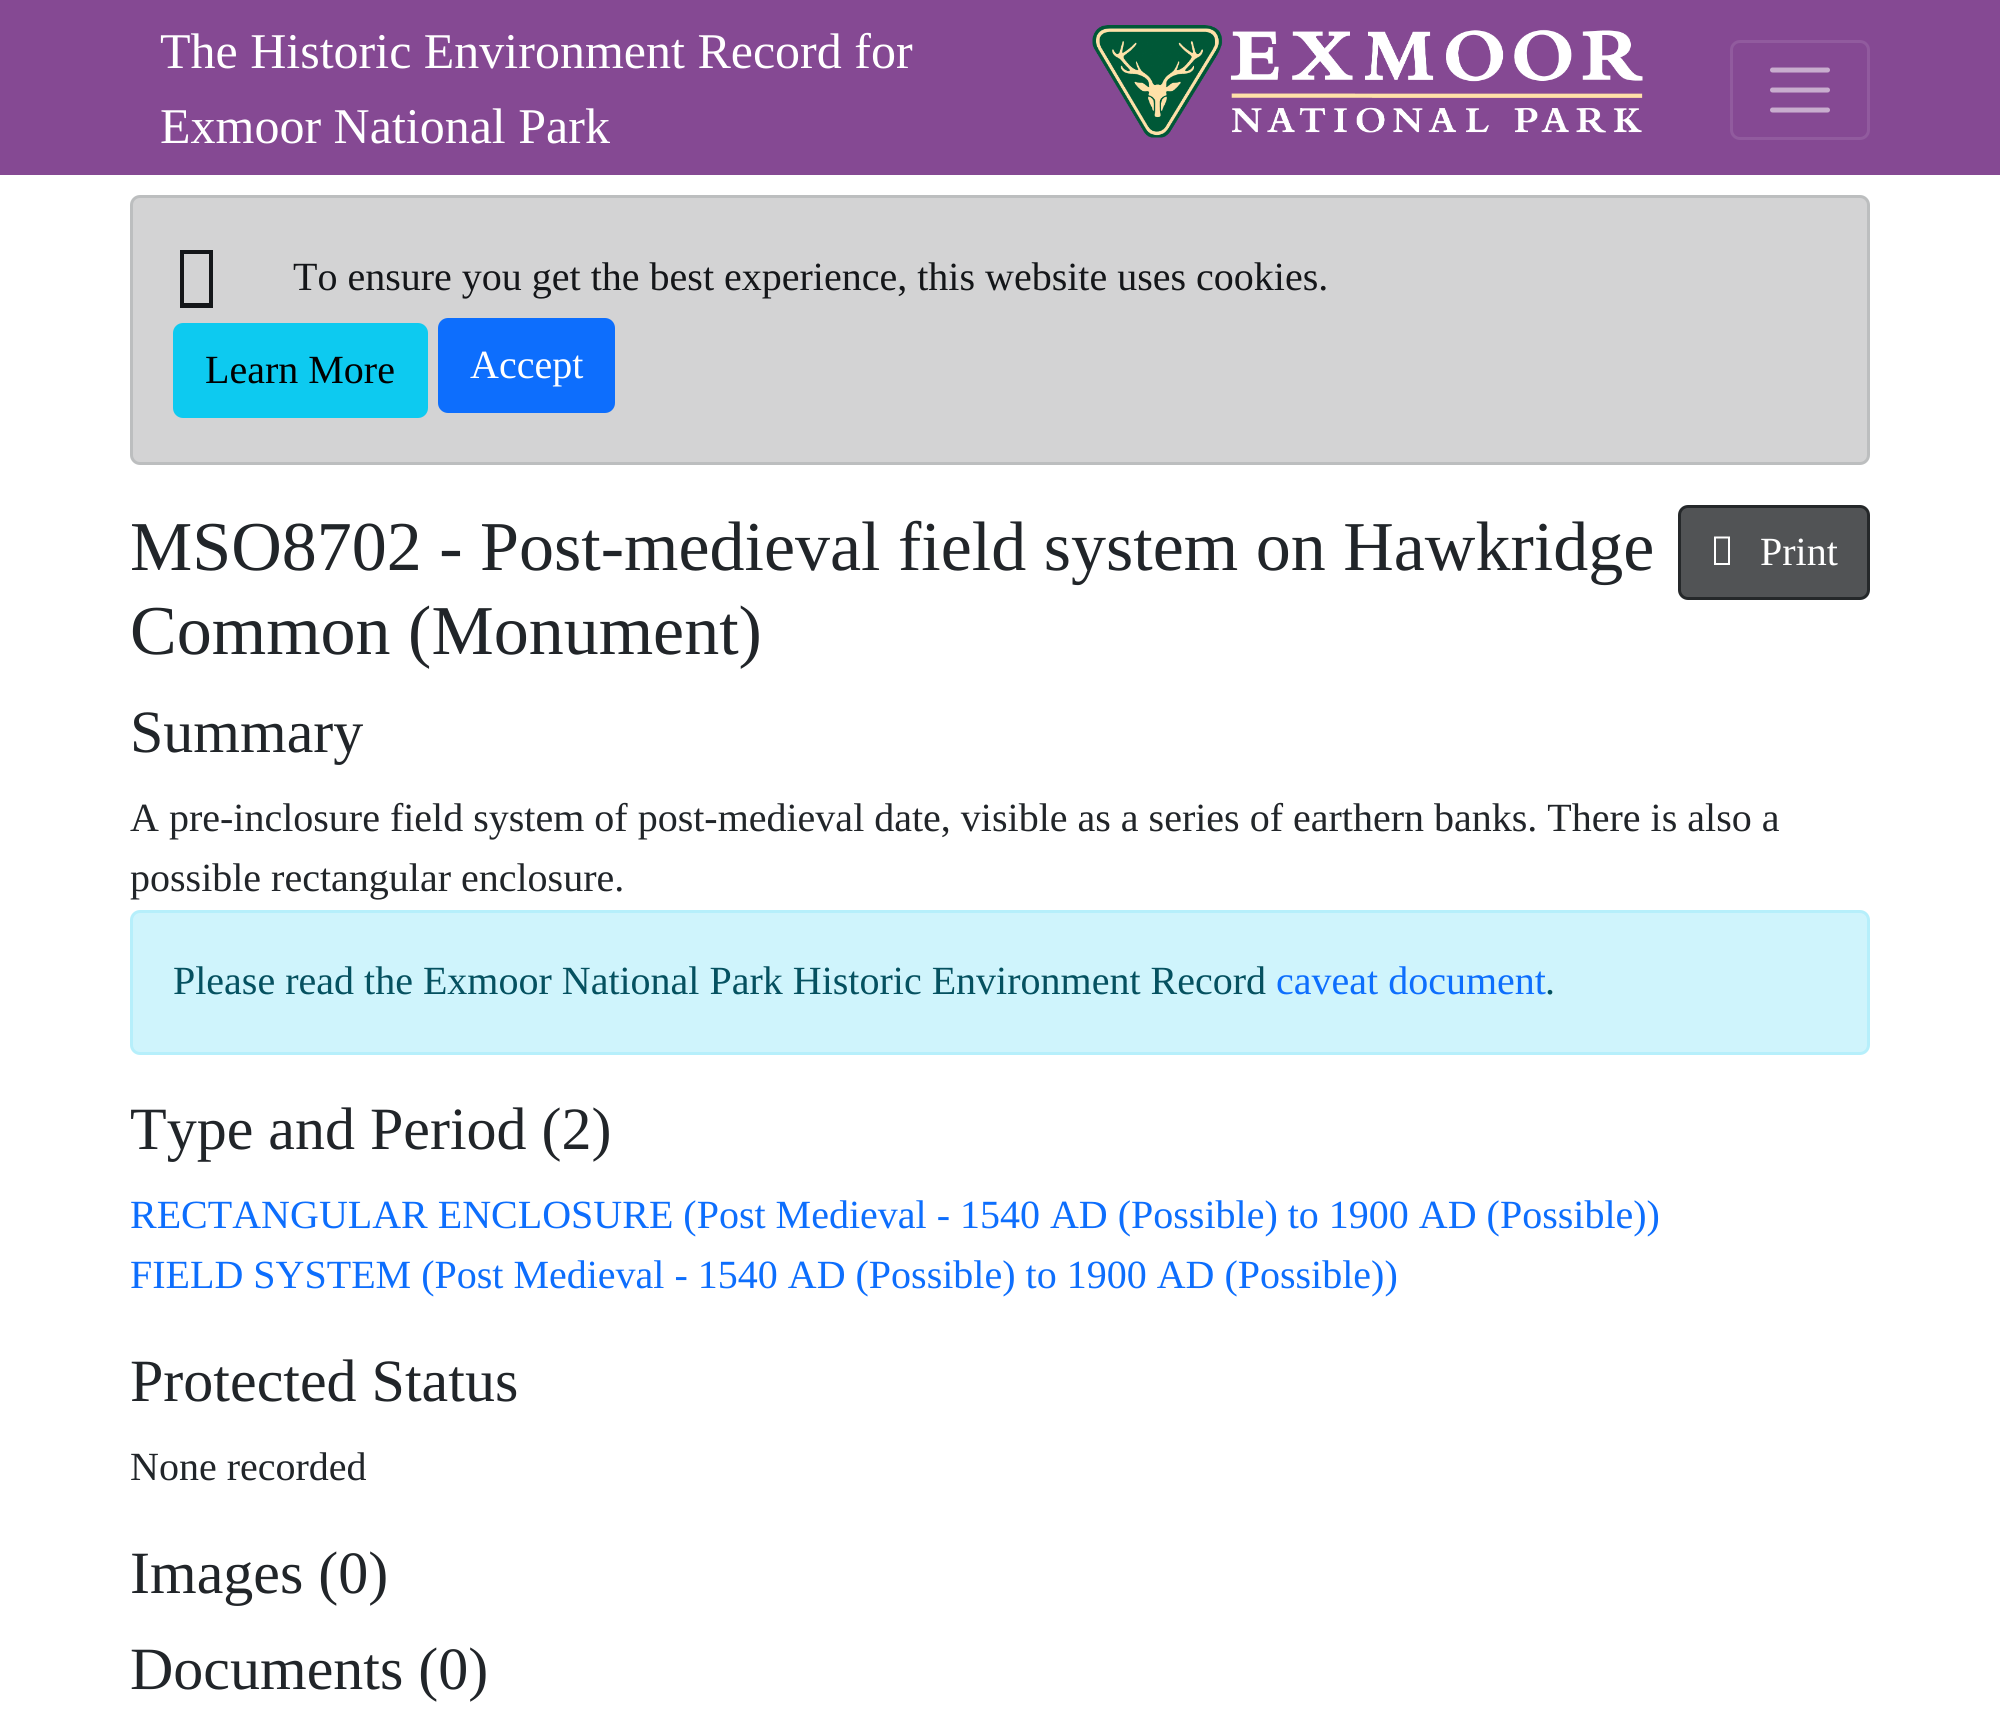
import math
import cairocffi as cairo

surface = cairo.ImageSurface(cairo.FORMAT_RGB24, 2000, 1718)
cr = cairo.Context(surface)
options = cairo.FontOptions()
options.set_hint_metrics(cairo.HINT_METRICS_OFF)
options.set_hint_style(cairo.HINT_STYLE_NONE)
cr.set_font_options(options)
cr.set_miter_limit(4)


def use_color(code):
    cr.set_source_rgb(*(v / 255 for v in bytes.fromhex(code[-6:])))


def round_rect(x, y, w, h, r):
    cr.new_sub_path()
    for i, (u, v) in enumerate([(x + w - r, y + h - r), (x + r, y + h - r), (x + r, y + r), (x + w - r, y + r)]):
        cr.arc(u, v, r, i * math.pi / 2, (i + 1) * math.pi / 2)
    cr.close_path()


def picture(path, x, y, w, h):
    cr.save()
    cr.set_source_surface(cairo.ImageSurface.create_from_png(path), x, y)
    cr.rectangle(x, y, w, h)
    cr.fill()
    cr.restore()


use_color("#ffffff")
cr.paint()
use_color("#854993")
cr.rectangle(0, 0, 2000, 175)
cr.fill()
cr.select_font_face("Liberation Serif")
cr.set_font_size(50)
use_color("#ffffff")
cr.move_to(160, 68)
cr.show_text("The Historic Environment Record for")
cr.move_to(160, 143)
cr.show_text("Exmoor National Park")
picture("img1.png", 1092, 25, 551, 113)
round_rect(1731.5, 41.5, 137, 97, 8.5)
use_color("#915b9e")
cr.set_line_width(3)
cr.stroke()
cr.new_path()
cr.move_to(1772.5, 70)
cr.line_to(1827.5, 70)
cr.move_to(1772.5, 90)
cr.line_to(1827.5, 90)
cr.move_to(1772.5, 110)
cr.line_to(1827.5, 110)
use_color("#c8adce")
cr.set_line_width(5)
cr.set_line_cap(cairo.LINE_CAP_ROUND)
cr.stroke()
use_color("#d3d3d4")
round_rect(131.5, 196.5, 1737, 267, 8.5)
cr.fill_preserve()
use_color("#bcbebf")
cr.set_line_width(3)
cr.set_line_cap(cairo.LINE_CAP_BUTT)
cr.stroke()
use_color("#141619")
cr.new_path()
cr.move_to(180, 308)
cr.line_to(180, 250)
cr.line_to(213, 250)
cr.line_to(213, 308)
cr.close_path()
cr.move_to(184, 303)
cr.line_to(209, 303)
cr.line_to(209, 254)
cr.line_to(184, 254)
cr.close_path()
cr.fill()
cr.set_font_size(40)
cr.move_to(293, 290)
cr.show_text("To ensure you get the best experience, this website uses cookies.")
use_color("#0dcaf0")
round_rect(174.5, 324.5, 252, 92, 8.5)
cr.fill_preserve()
cr.stroke()
use_color("#000000")
cr.move_to(205, 383)
cr.show_text("Learn More")
use_color("#0d6efd")
round_rect(439.5, 319.5, 174, 92, 8.5)
cr.fill_preserve()
cr.stroke()
use_color("#ffffff")
cr.move_to(470, 378)
cr.show_text("Accept")
cr.set_font_size(70)
use_color("#212529")
cr.move_to(130, 570)
cr.show_text("MSO8702 - Post-medieval field system on Hawkridge")
cr.move_to(130, 654)
cr.show_text("Common (Monument)")
use_color("#515355")
round_rect(1679.5, 506.5, 189, 92, 8.5)
cr.fill_preserve()
use_color("#25282a")
cr.stroke()
use_color("#ffffff")
cr.new_path()
cr.move_to(1714, 565)
cr.line_to(1714, 536.5)
cr.line_to(1730, 536.5)
cr.line_to(1730, 565)
cr.close_path()
cr.move_to(1716, 563)
cr.line_to(1728, 563)
cr.line_to(1728, 538.5)
cr.line_to(1716, 538.5)
cr.close_path()
cr.fill()
cr.set_font_size(40)
cr.move_to(1760, 565)
cr.show_text("Print")
cr.set_font_size(60)
use_color("#212529")
cr.move_to(130, 752)
cr.show_text("Summary")
cr.set_font_size(40)
cr.move_to(130, 831)
cr.show_text("A pre-inclosure field system of post-medieval date, visible as a series of earthern banks. There is also a")
cr.move_to(130, 891)
cr.show_text("possible rectangular enclosure.")
use_color("#cff4fc")
round_rect(131.5, 911.5, 1737, 142, 8.5)
cr.fill_preserve()
use_color("#b6effb")
cr.stroke()
use_color("#055160")
cr.move_to(173, 994)
cr.show_text("Please read the Exmoor National Park Historic Environment Record")
use_color("#0d6efd")
cr.move_to(1276, 994)
cr.show_text("caveat document")
use_color("#055160")
cr.move_to(1545, 994)
cr.show_text(".")
cr.set_font_size(60)
use_color("#212529")
cr.move_to(130, 1149)
cr.show_text("Type and Period (2)")
cr.set_font_size(40)
use_color("#0d6efd")
cr.move_to(130, 1228)
cr.show_text("RECTANGULAR ENCLOSURE (Post Medieval - 1540 AD (Possible) to 1900 AD (Possible))")
cr.move_to(130, 1288)
cr.show_text("FIELD SYSTEM (Post Medieval - 1540 AD (Possible) to 1900 AD (Possible))")
cr.set_font_size(60)
use_color("#212529")
cr.move_to(130, 1401)
cr.show_text("Protected Status")
cr.set_font_size(40)
cr.move_to(130, 1480)
cr.show_text("None recorded")
cr.set_font_size(60)
cr.move_to(130, 1593)
cr.show_text("Images (0)")
cr.move_to(130, 1689)
cr.show_text("Documents (0)")
surface.write_to_png("result.png")
